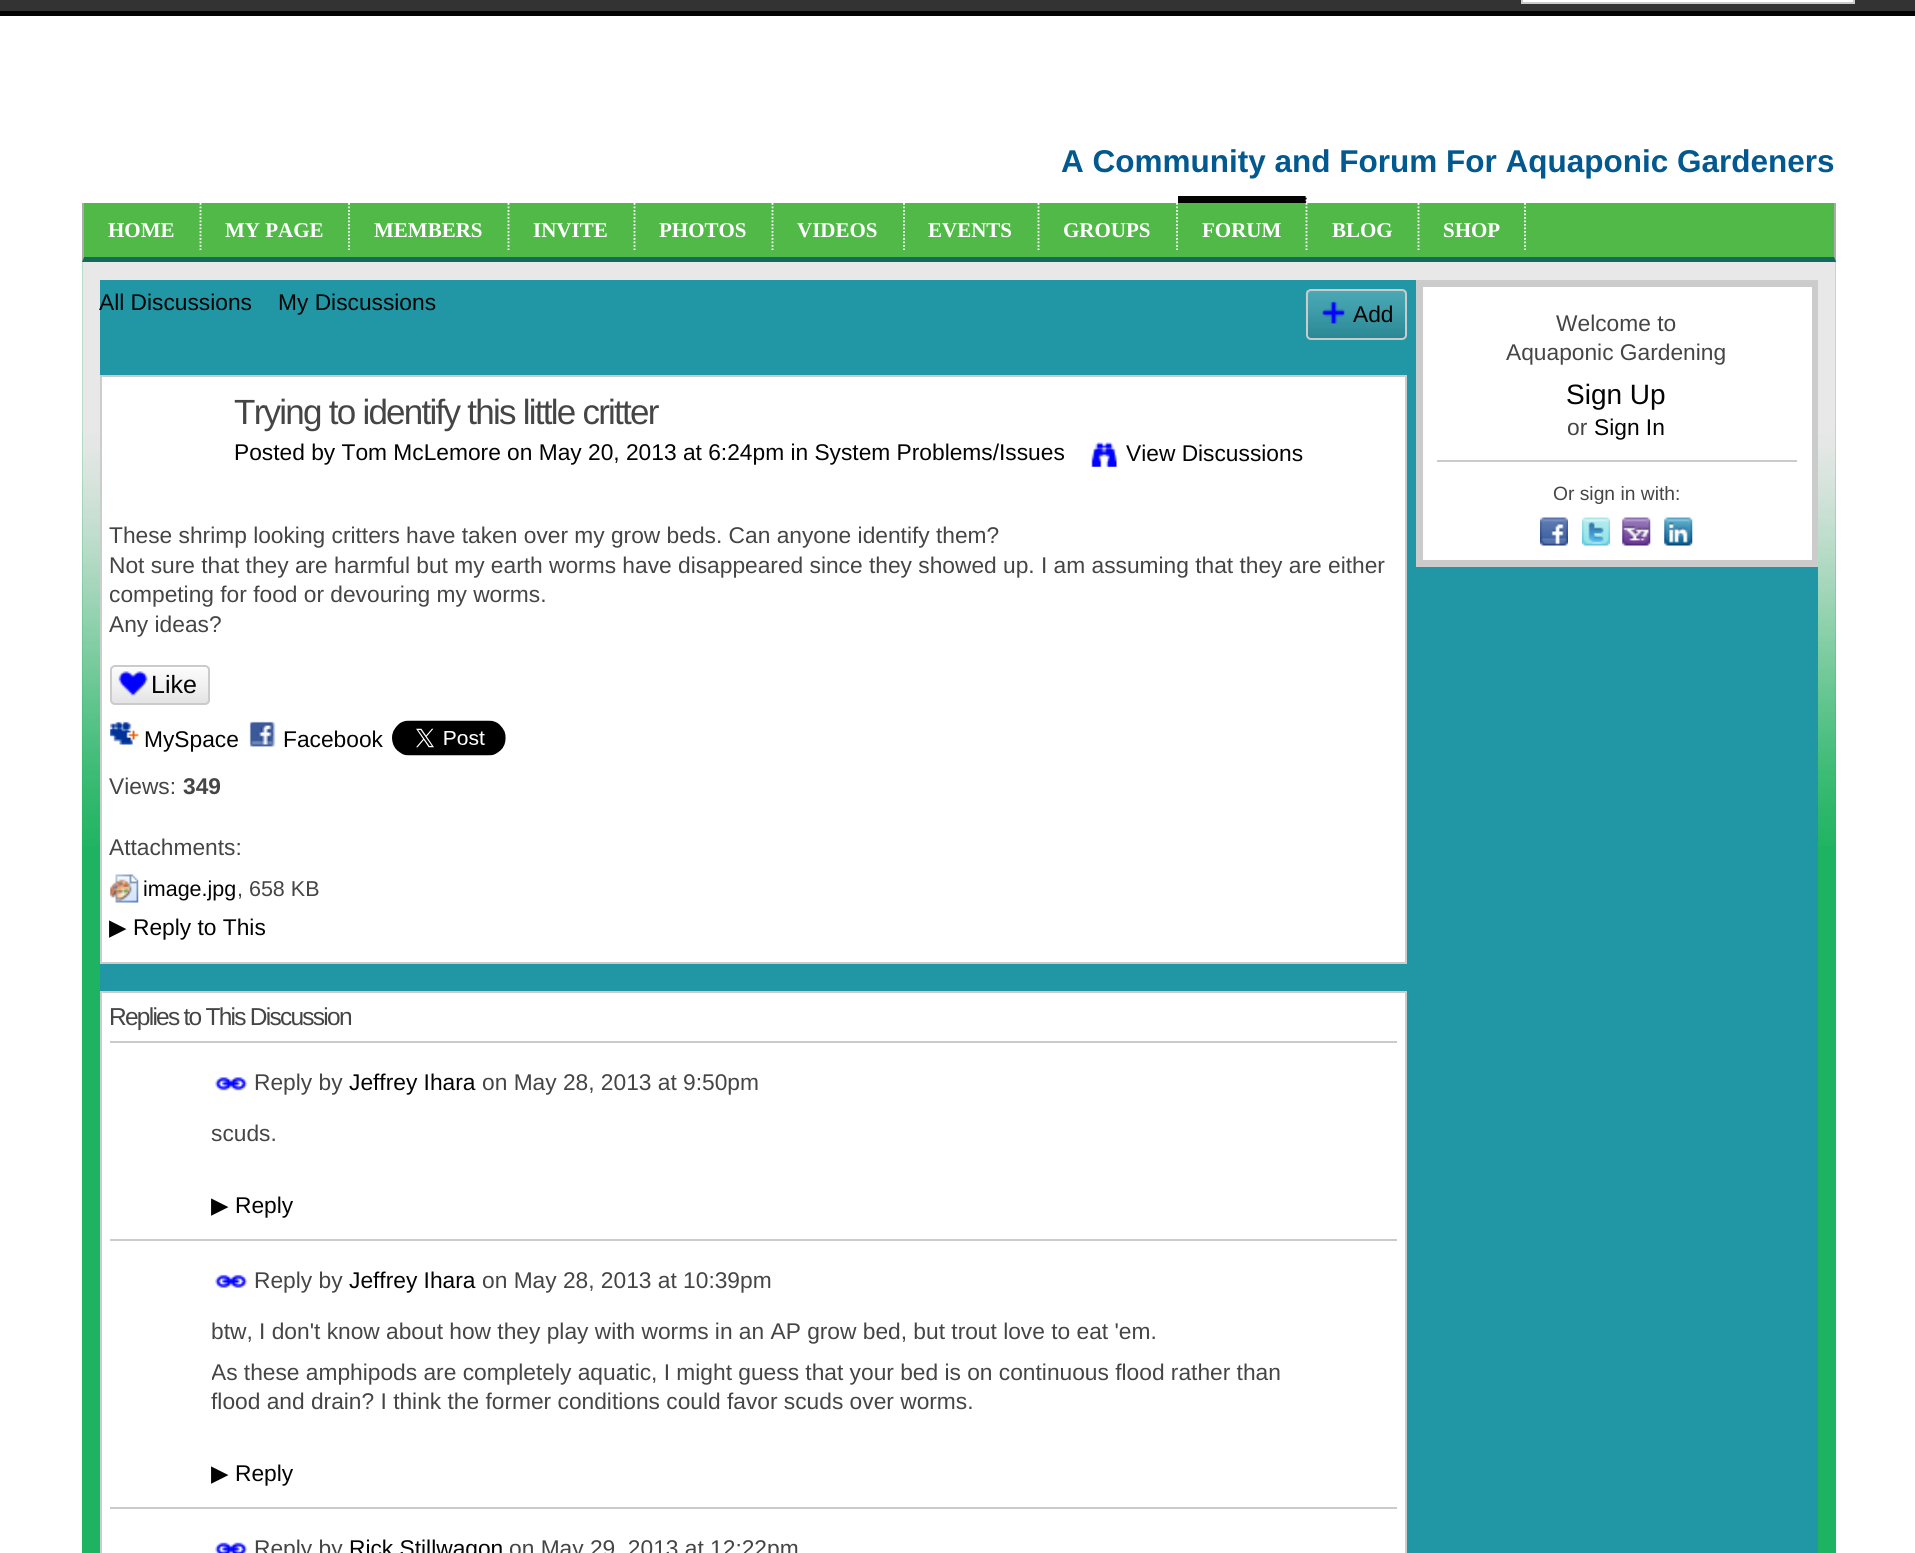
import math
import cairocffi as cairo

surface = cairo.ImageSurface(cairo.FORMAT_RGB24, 1915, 1553)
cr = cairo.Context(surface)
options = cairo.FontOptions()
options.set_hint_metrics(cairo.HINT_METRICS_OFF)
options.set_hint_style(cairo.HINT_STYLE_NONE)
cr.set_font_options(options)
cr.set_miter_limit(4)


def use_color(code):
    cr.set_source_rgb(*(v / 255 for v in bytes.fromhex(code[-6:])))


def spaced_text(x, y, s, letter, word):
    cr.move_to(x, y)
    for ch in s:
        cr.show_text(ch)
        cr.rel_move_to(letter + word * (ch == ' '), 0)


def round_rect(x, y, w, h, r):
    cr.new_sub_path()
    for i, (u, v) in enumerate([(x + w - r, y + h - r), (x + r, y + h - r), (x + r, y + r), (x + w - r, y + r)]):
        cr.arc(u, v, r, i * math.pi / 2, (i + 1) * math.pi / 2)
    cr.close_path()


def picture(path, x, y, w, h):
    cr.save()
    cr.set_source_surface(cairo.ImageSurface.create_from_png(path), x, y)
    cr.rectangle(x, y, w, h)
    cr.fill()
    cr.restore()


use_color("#ffffff")
cr.paint()
use_color("#333333")
cr.rectangle(0, 0, 1915, 11)
cr.fill()
use_color("#ffffff")
cr.rectangle(1521, 0, 334, 2)
cr.fill()
use_color("#cccccc")
cr.rectangle(1853, 0, 2, 4)
cr.fill()
cr.rectangle(1521, 2, 334, 2)
cr.fill()
cr.rectangle(1521, 0, 2, 4)
cr.fill()
use_color("#030303")
cr.rectangle(0, 11, 1915, 5)
cr.fill()
cr.select_font_face("Liberation Sans", cairo.FONT_SLANT_NORMAL, cairo.FONT_WEIGHT_BOLD)
cr.set_font_size(31.5)
use_color("#02598f")
cr.move_to(1061, 172)
cr.show_text("A Community and Forum For Aquaponic Gardeners")
use_color("#51b948")
cr.rectangle(82, 203, 1754, 60)
cr.fill()
use_color("#aaaaaa")
cr.new_path()
cr.move_to(1836, 203)
cr.line_to(1836, 262)
cr.line_to(1834, 257)
cr.line_to(1834, 203)
cr.close_path()
cr.fill()
use_color("#136b5a")
cr.new_path()
cr.move_to(1836, 262)
cr.line_to(82, 262)
cr.line_to(84, 257)
cr.line_to(1834, 257)
cr.close_path()
cr.fill()
use_color("#aaaaaa")
cr.new_path()
cr.move_to(82, 262)
cr.line_to(82, 203)
cr.line_to(84, 203)
cr.line_to(84, 257)
cr.close_path()
cr.fill()
cr.new_path()
cr.move_to(200.5, 196)
cr.line_to(200.5, 250)
use_color("#ffffff")
cr.set_line_width(1.8)
cr.set_dash([1.75, 1.75])
cr.stroke()
cr.select_font_face("Liberation Serif", cairo.FONT_SLANT_NORMAL, cairo.FONT_WEIGHT_BOLD)
cr.set_font_size(21)
cr.move_to(108, 237)
cr.show_text("HOME")
cr.new_path()
cr.move_to(349, 196)
cr.line_to(349, 250)
cr.stroke()
cr.move_to(225, 237)
cr.show_text("MY PAGE")
cr.new_path()
cr.move_to(508.5, 196)
cr.line_to(508.5, 250)
cr.stroke()
cr.move_to(374, 237)
cr.show_text("MEMBERS")
cr.new_path()
cr.move_to(634.5, 196)
cr.line_to(634.5, 250)
cr.stroke()
cr.move_to(533, 237)
cr.show_text("INVITE")
cr.new_path()
cr.move_to(772.5, 196)
cr.line_to(772.5, 250)
cr.stroke()
cr.move_to(659, 237)
cr.show_text("PHOTOS")
cr.new_path()
cr.move_to(904, 196)
cr.line_to(904, 250)
cr.stroke()
cr.move_to(797, 237)
cr.show_text("VIDEOS")
cr.new_path()
cr.move_to(1038.5, 196)
cr.line_to(1038.5, 250)
cr.stroke()
cr.move_to(928, 237)
cr.show_text("EVENTS")
cr.new_path()
cr.move_to(1177, 196)
cr.line_to(1177, 250)
cr.stroke()
cr.move_to(1063, 237)
cr.show_text("GROUPS")
use_color("#030303")
cr.new_path()
cr.move_to(1178, 196)
cr.line_to(1307, 196)
cr.line_to(1306, 203)
cr.line_to(1178, 203)
cr.close_path()
cr.fill()
cr.new_path()
cr.move_to(1306.5, 196)
cr.line_to(1306.5, 250)
use_color("#ffffff")
cr.stroke()
cr.move_to(1202, 237)
cr.show_text("FORUM")
cr.new_path()
cr.move_to(1418.5, 196)
cr.line_to(1418.5, 250)
cr.stroke()
cr.move_to(1332, 237)
cr.show_text("BLOG")
cr.new_path()
cr.move_to(1525, 196)
cr.line_to(1525, 250)
cr.stroke()
cr.move_to(1443, 237)
cr.show_text("SHOP")
use_color("#1db360")
cr.rectangle(82, 263, 1754, 1290)
cr.fill()
picture("img1.png", 82, 262, 1754, 584)
use_color("#2197a6")
cr.rectangle(100, 280, 1718, 1273)
cr.fill()
cr.select_font_face("Liberation Sans")
cr.set_font_size(22.75)
use_color("#030303")
cr.move_to(99, 310)
cr.show_text("All Discussions")
cr.move_to(278, 310)
cr.show_text("My Discussions")
picture("img2.png", 1305, 290, 102, 48)
round_rect(1307, 290, 99, 49, 4)
use_color("#cbcbcb")
cr.set_line_width(2)
cr.set_dash([])
cr.stroke()
picture("img3.png", 1322, 301, 23, 23)
use_color("#030303")
cr.move_to(1353, 322)
cr.show_text("Add")
use_color("#ffffff")
cr.rectangle(101, 376, 1305, 587)
cr.fill_preserve()
use_color("#cccccc")
cr.stroke()
cr.set_font_size(35)
use_color("#454545")
spaced_text(234, 424, "Trying to identify this little critter", -1.75, 0)
cr.set_font_size(22.75)
use_color("#030303")
cr.move_to(234, 460)
cr.show_text("Posted by Tom McLemore on May 20, 2013 at 6:24pm in System Problems/Issues")
picture("img4.png", 1091, 442, 26, 25)
cr.move_to(1126, 461)
cr.show_text("View Discussions")
use_color("#454545")
cr.move_to(109, 543)
cr.show_text("These shrimp looking critters have taken over my grow beds. Can anyone identify them?")
cr.move_to(109, 573)
cr.show_text("Not sure that they are harmful but my earth worms have disappeared since they showed up. I am assuming that they are either")
cr.move_to(109, 602)
cr.show_text("competing for food or devouring my worms.")
cr.move_to(109, 632)
cr.show_text("Any ideas?")
picture("img5.png", 110, 668, 100, 37)
round_rect(111, 666, 98, 38, 4)
use_color("#cbcbcb")
cr.stroke()
picture("img6.png", 118, 671, 30, 26)
cr.set_font_size(25)
use_color("#030303")
cr.move_to(151, 693)
cr.show_text("Like")
picture("img7.png", 110, 721, 29, 24)
cr.set_font_size(22.75)
cr.move_to(144, 747)
cr.show_text("MySpace")
picture("img8.png", 249, 721, 27, 26)
cr.move_to(283, 747)
cr.show_text("Facebook")
picture("img9.png", 392, 720, 114, 36)
use_color("#454545")
cr.move_to(109, 794)
cr.show_text("Views:")
cr.select_font_face("Liberation Sans", cairo.FONT_SLANT_NORMAL, cairo.FONT_WEIGHT_BOLD)
cr.move_to(183, 794)
cr.show_text("349")
cr.select_font_face("Liberation Sans")
cr.move_to(109, 855)
cr.show_text("Attachments:")
picture("img10.png", 110, 874, 29, 29)
cr.set_font_size(21.5)
use_color("#030303")
cr.move_to(143, 896)
cr.show_text("image.jpg")
use_color("#454545")
cr.move_to(237, 896)
cr.show_text(", 658 KB")
cr.select_font_face("DejaVu Sans")
cr.set_font_size(22.75)
use_color("#030303")
cr.move_to(109, 935)
cr.show_text("▶")
cr.select_font_face("Liberation Sans")
cr.move_to(133, 935)
cr.show_text("Reply to This")
use_color("#ffffff")
cr.rectangle(101, 992, 1305, 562)
cr.fill_preserve()
use_color("#cccccc")
cr.stroke()
cr.set_font_size(24.5)
use_color("#454545")
spaced_text(109, 1025, "Replies to This Discussion", -1.75, 0)
use_color("#cbcbcb")
cr.rectangle(110, 1041, 1287, 2)
cr.fill()
picture("img11.png", 215, 1077, 33, 14)
cr.set_font_size(22.75)
use_color("#454545")
cr.move_to(254, 1090)
cr.show_text("Reply by")
use_color("#030303")
cr.move_to(349, 1090)
cr.show_text("Jeffrey Ihara")
use_color("#454545")
cr.move_to(482, 1090)
cr.show_text("on May 28, 2013 at 9:50pm")
cr.move_to(211, 1141)
cr.show_text("scuds.")
cr.select_font_face("DejaVu Sans")
use_color("#030303")
cr.move_to(211, 1213)
cr.show_text("▶")
cr.select_font_face("Liberation Sans")
cr.move_to(235, 1213)
cr.show_text("Reply")
use_color("#cbcbcb")
cr.rectangle(110, 1239, 1287, 2)
cr.fill()
picture("img12.png", 215, 1274, 33, 14)
use_color("#454545")
cr.move_to(254, 1288)
cr.show_text("Reply by")
use_color("#030303")
cr.move_to(349, 1288)
cr.show_text("Jeffrey Ihara")
use_color("#454545")
cr.move_to(482, 1288)
cr.show_text("on May 28, 2013 at 10:39pm")
cr.move_to(211, 1339)
cr.show_text("btw, I don't know about how they play with worms in an AP grow bed, but trout love to eat 'em.")
cr.save()
cr.rectangle(212, 1309, 1123, 117)
cr.clip()
cr.move_to(211, 1380)
cr.show_text("As these amphipods are completely aquatic, I might guess that your bed is on continuous flood rather than")
cr.restore()
cr.move_to(211, 1409)
cr.show_text("flood and drain? I think the former conditions could favor scuds over worms.")
cr.select_font_face("DejaVu Sans")
use_color("#030303")
cr.move_to(211, 1481)
cr.show_text("▶")
cr.select_font_face("Liberation Sans")
cr.move_to(235, 1481)
cr.show_text("Reply")
use_color("#cbcbcb")
cr.rectangle(110, 1507, 1287, 2)
cr.fill()
picture("img13.png", 215, 1542, 33, 11)
use_color("#454545")
cr.move_to(254, 1556)
cr.show_text("Reply by")
use_color("#030303")
cr.move_to(349, 1556)
cr.show_text("Rick Stillwagon")
use_color("#454545")
cr.move_to(509, 1556)
cr.show_text("on May 29, 2013 at 12:22pm")
use_color("#ffffff")
cr.rectangle(1423, 287, 389, 273)
cr.fill()
cr.rectangle(1417, 281, 400, 285)
use_color("#cccccc")
cr.stroke()
cr.rectangle(1420.5, 284.5, 394, 278)
use_color("#cbcbcb")
cr.set_line_width(5)
cr.stroke()
use_color("#454545")
cr.move_to(1556, 331)
cr.show_text("Welcome to")
cr.move_to(1506, 360)
cr.show_text("Aquaponic Gardening")
cr.set_font_size(28)
use_color("#030303")
cr.move_to(1566, 404)
cr.show_text("Sign Up")
cr.set_font_size(22.75)
use_color("#454545")
cr.move_to(1567, 435)
cr.show_text("or")
use_color("#030303")
cr.move_to(1594, 435)
cr.show_text("Sign In")
use_color("#cbcbcb")
cr.rectangle(1437, 460, 360, 2)
cr.fill()
cr.set_font_size(19.25)
use_color("#454545")
cr.move_to(1553, 500)
cr.show_text("Or sign in with:")
picture("img14.png", 1540, 517, 28, 29)
picture("img15.png", 1582, 517, 28, 29)
picture("img16.png", 1622, 517, 29, 29)
picture("img17.png", 1664, 517, 29, 29)
surface.write_to_png("result.png")
